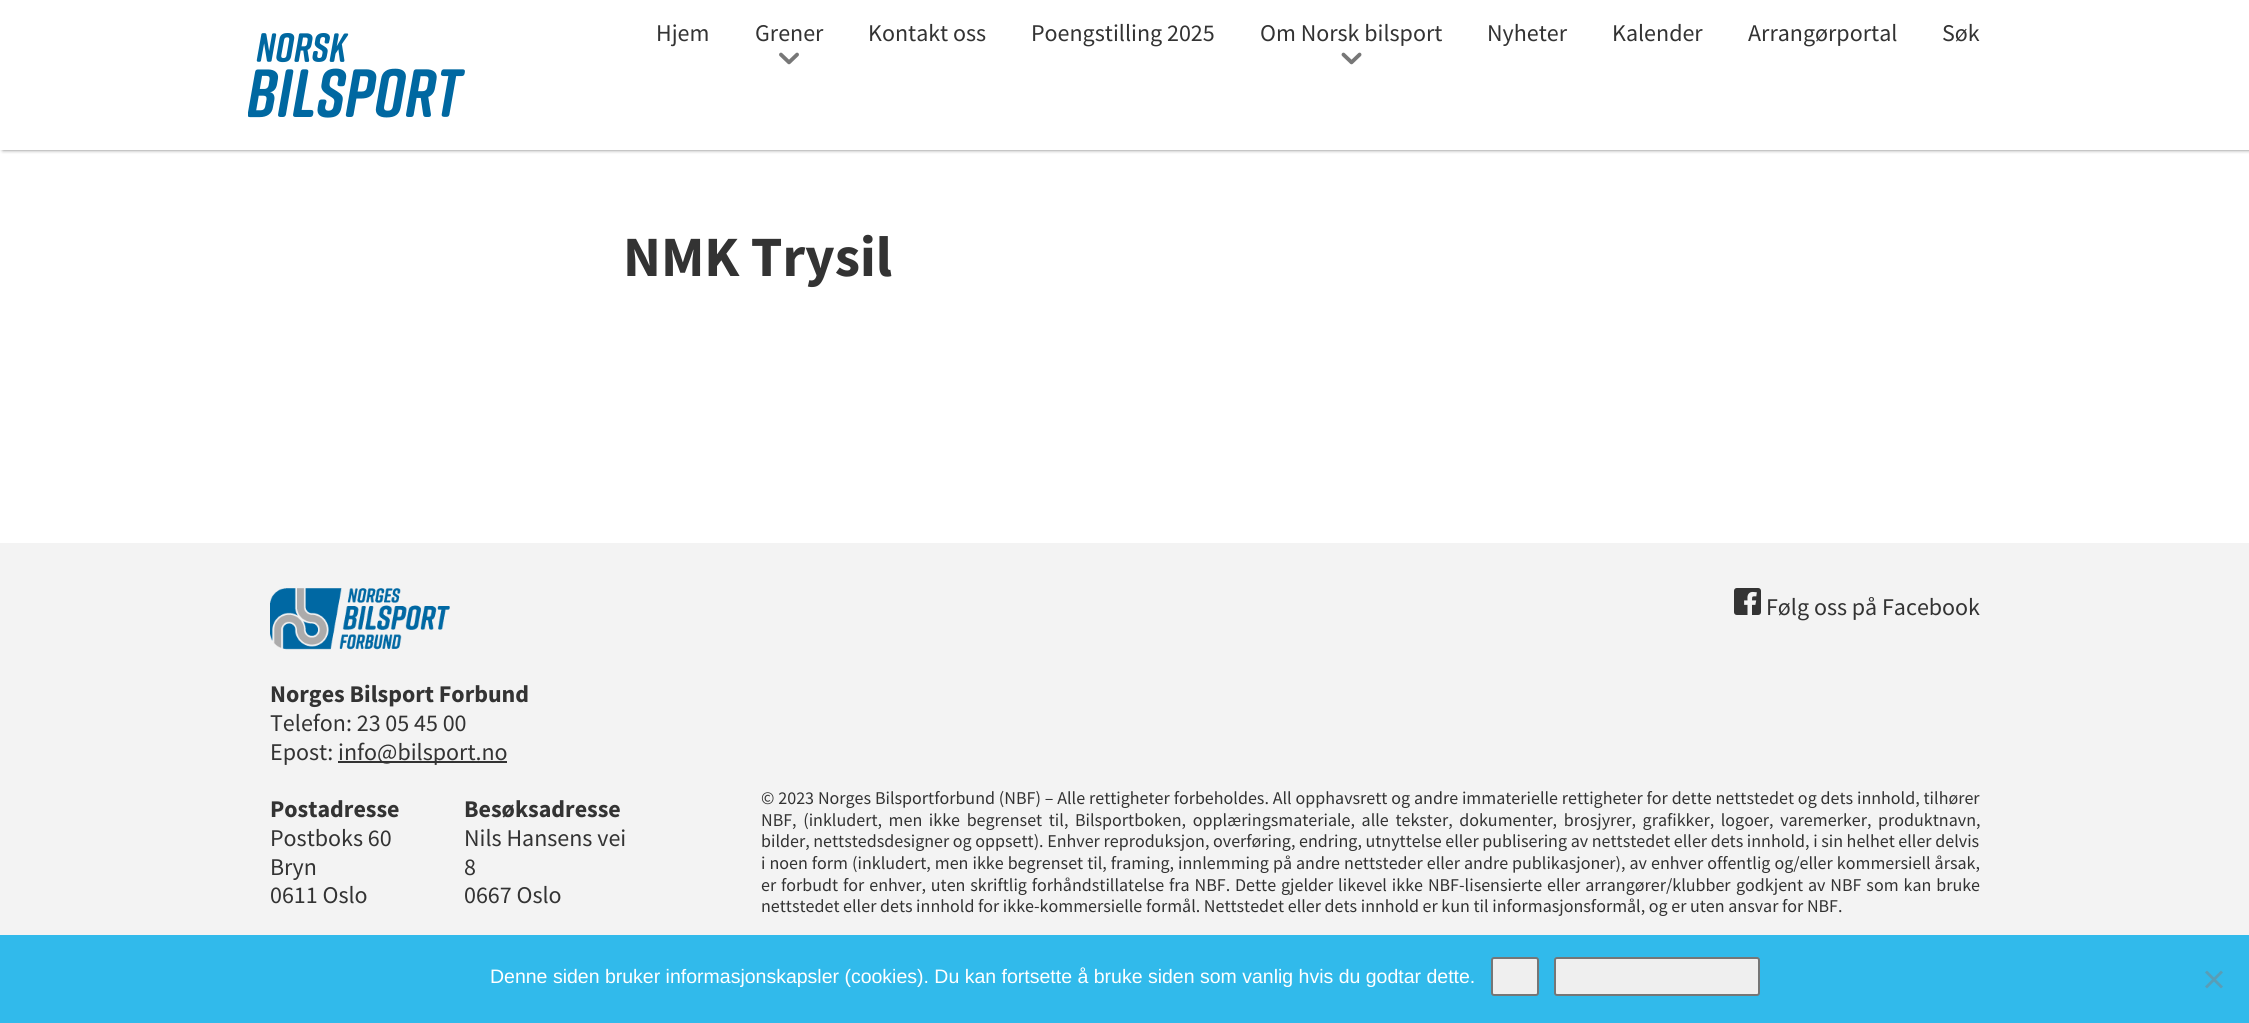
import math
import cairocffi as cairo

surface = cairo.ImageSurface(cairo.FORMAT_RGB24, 2249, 1023)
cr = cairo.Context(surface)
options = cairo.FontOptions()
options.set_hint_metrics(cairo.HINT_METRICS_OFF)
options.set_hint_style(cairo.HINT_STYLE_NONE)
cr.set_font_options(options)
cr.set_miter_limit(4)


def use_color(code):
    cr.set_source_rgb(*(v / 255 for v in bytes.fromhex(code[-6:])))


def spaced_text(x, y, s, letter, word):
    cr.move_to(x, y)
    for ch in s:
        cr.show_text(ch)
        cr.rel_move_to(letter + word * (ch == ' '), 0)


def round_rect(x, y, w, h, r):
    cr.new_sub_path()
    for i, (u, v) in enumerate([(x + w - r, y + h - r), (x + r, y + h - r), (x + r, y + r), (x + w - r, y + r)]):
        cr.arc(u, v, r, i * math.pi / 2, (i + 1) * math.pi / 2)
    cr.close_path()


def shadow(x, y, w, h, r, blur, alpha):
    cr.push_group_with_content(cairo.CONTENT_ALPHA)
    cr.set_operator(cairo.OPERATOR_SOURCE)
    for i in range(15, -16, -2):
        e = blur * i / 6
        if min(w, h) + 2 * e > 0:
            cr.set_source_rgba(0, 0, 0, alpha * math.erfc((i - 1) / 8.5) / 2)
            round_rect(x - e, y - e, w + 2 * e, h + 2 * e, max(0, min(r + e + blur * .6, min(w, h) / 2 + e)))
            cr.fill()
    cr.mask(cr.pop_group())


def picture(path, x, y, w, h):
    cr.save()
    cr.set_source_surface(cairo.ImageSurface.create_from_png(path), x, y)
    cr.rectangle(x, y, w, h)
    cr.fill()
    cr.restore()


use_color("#ffffff")
cr.paint()
cr.save()
cr.rectangle(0, 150, 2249, 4)
cr.clip()
use_color("#777777")
shadow(3, 0, 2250, 150, 0, 2, 1)
cr.restore()
picture("img1.png", 248, 33, 217, 85)
cr.select_font_face("Source Sans Pro")
cr.set_font_size(24)
use_color("#333333")
cr.move_to(656, 41)
cr.show_text("Hjem")
cr.move_to(755, 41)
cr.show_text("Grener")
picture("img2.png", 779, 52, 20, 13)
cr.move_to(868, 41)
cr.show_text("Kontakt oss")
cr.move_to(1031, 41)
cr.show_text("Poengstilling 2025")
cr.move_to(1260, 41)
cr.show_text("Om Norsk bilsport")
picture("img3.png", 1341, 52, 21, 13)
cr.move_to(1487, 41)
cr.show_text("Nyheter")
cr.move_to(1612, 41)
cr.show_text("Kalender")
cr.move_to(1748, 41)
cr.show_text("Arrangørportal")
cr.move_to(1942, 41)
cr.show_text("Søk")
cr.select_font_face("Source Sans Pro", cairo.FONT_SLANT_NORMAL, cairo.FONT_WEIGHT_BOLD)
cr.set_font_size(57)
cr.move_to(623, 276)
cr.show_text("NMK Trysil")
use_color("#f3f3f3")
cr.rectangle(0, 543, 2249, 392)
cr.fill()
picture("img4.png", 1734, 588, 27, 27)
cr.select_font_face("Source Sans Pro")
cr.set_font_size(24)
use_color("#333333")
cr.move_to(1766, 615)
cr.show_text("Følg oss på Facebook")
picture("img5.png", 270, 588, 180, 62)
cr.select_font_face("Source Sans Pro", cairo.FONT_SLANT_NORMAL, cairo.FONT_WEIGHT_BOLD)
cr.move_to(270, 702)
cr.show_text("Norges Bilsport Forbund")
cr.select_font_face("Source Sans Pro")
cr.move_to(270, 731)
cr.show_text("Telefon: 23 05 45 00")
cr.move_to(270, 760)
cr.show_text("Epost:")
cr.rectangle(338, 761, 169, 2)
cr.fill()
cr.move_to(338, 760)
cr.show_text("info@bilsport.no")
cr.select_font_face("Source Sans Pro", cairo.FONT_SLANT_NORMAL, cairo.FONT_WEIGHT_BOLD)
cr.move_to(270, 817)
cr.show_text("Postadresse")
cr.select_font_face("Source Sans Pro")
cr.move_to(270, 846)
cr.show_text("Postboks 60")
cr.move_to(270, 875)
cr.show_text("Bryn")
cr.move_to(270, 903)
cr.show_text("0611 Oslo")
cr.select_font_face("Source Sans Pro", cairo.FONT_SLANT_NORMAL, cairo.FONT_WEIGHT_BOLD)
cr.move_to(464, 817)
cr.show_text("Besøksadresse")
cr.select_font_face("Source Sans Pro")
cr.move_to(464, 846)
cr.show_text("Nils Hansens vei")
cr.move_to(464, 875)
cr.show_text("8")
cr.move_to(464, 903)
cr.show_text("0667 Oslo")
cr.set_font_size(18)
spaced_text(761, 804, "© 2023 Norges Bilsportforbund (NBF) – Alle rettigheter forbeholdes. All opphavsrett og andre immaterielle rettigheter for dette nettstedet og dets innhold, tilhører", 0, 0.25)
spaced_text(761, 826, "NBF, (inkludert, men ikke begrenset til, Bilsportboken, opplæringsmateriale, alle tekster, dokumenter, brosjyrer, grafikker, logoer, varemerker, produktnavn,", 0, 3)
cr.move_to(761, 847)
cr.show_text("bilder, nettstedsdesigner og oppsett). Enhver reproduksjon, overføring, endring, utnyttelse eller publisering av nettstedet eller dets innhold, i sin helhet eller delvis")
spaced_text(761, 869, "i noen form (inkludert, men ikke begrenset til, framing, innlemming på andre nettsteder eller andre publikasjoner), av enhver offentlig og/eller kommersiell årsak,", 0, 0.4)
spaced_text(761, 891, "er forbudt for enhver, uten skriftlig forhåndstillatelse fra NBF. Dette gjelder likevel ikke NBF-lisensierte eller arrangører/klubber", 0, 1.3)
spaced_text(1736, 891, "godkjent av NBF som kan bruke", 0, 1.3)
cr.move_to(761, 912)
cr.show_text("nettstedet eller dets innhold for ikke-kommersielle formål. Nettstedet eller dets innhold er kun til informasjonsformål, og er uten ansvar for NBF.")
use_color("#31baeb")
cr.rectangle(0, 935, 2249, 88)
cr.fill()
cr.select_font_face("Liberation Sans")
cr.set_font_size(19.5)
use_color("#ffffff")
cr.move_to(490, 983)
cr.show_text("Denne siden bruker informasjonskapsler (cookies). Du kan fortsette å bruke siden som vanlig hvis du godtar dette.")
use_color("#efefef")
round_rect(1492, 958, 46, 37, 2)
cr.fill_preserve()
use_color("#767676")
cr.stroke()
use_color("#efefef")
round_rect(1555, 958, 204, 37, 2)
cr.fill_preserve()
use_color("#767676")
cr.stroke()
use_color("#599db6")
cr.new_path()
cr.move_to(2221, 970.5)
cr.line_to(2223, 972.5)
cr.line_to(2207, 988.5)
cr.line_to(2205, 986.5)
cr.close_path()
cr.fill()
cr.new_path()
cr.move_to(2205, 972.5)
cr.line_to(2207, 970.5)
cr.line_to(2223, 986.5)
cr.line_to(2221, 988.5)
cr.close_path()
cr.fill()
surface.write_to_png("result.png")
